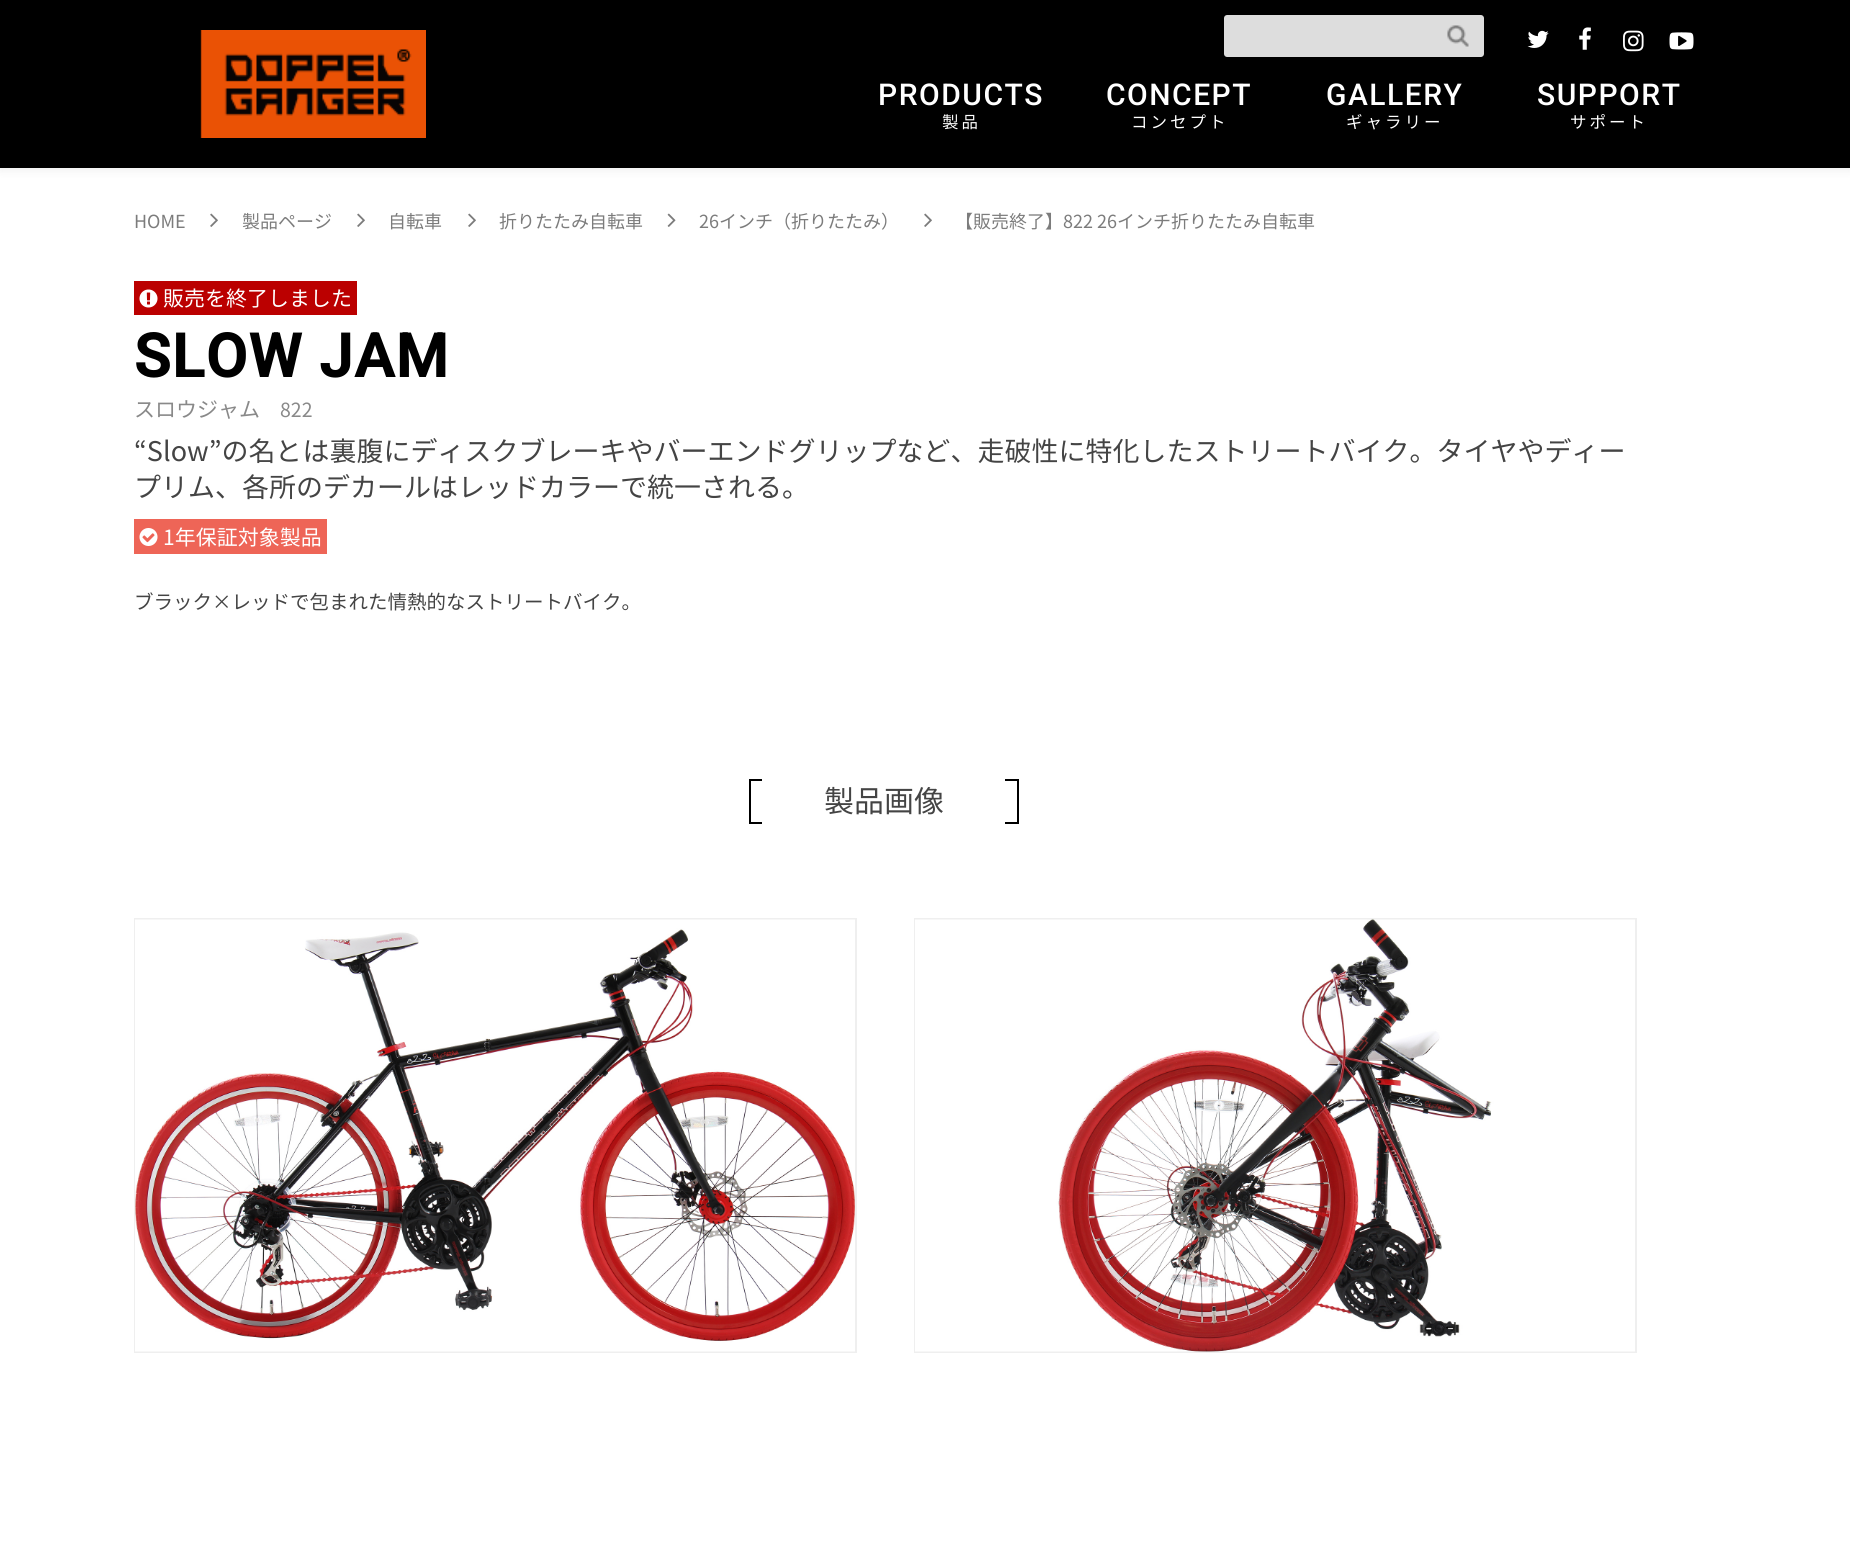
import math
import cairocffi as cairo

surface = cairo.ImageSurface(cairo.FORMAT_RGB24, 1850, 1554)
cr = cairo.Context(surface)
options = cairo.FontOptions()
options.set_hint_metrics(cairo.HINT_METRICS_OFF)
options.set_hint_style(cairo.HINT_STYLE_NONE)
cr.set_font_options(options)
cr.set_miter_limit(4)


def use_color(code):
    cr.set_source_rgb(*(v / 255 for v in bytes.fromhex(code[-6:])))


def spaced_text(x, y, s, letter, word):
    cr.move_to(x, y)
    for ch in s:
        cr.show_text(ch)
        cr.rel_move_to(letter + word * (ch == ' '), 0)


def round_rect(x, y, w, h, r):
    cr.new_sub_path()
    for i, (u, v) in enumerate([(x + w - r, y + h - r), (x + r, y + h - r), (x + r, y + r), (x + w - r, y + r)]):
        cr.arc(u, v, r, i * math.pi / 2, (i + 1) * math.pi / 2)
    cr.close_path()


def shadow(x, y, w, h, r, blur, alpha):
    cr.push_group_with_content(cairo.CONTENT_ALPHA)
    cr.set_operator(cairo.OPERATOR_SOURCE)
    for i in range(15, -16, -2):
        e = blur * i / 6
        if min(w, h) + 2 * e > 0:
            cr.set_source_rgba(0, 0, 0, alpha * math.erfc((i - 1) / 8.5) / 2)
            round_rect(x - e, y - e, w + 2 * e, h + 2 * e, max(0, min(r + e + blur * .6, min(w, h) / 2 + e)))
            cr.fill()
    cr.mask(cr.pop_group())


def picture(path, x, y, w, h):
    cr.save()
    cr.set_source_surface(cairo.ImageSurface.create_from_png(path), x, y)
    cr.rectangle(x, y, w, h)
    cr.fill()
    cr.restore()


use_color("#ffffff")
cr.paint()
use_color("#000000")
shadow(0, 3, 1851, 168, 0, 4.5, 0.06)
use_color("#000000")
cr.rectangle(0, 0, 1850, 168)
cr.fill()
use_color("#dddddd")
cr.new_path()
cr.move_to(1227, 16)
cr.line_to(1430, 16)
cr.line_to(1430, 56)
cr.line_to(1227, 56)
cr.curve_to(1226, 56, 1225, 55, 1225, 54)
cr.line_to(1225, 18)
cr.curve_to(1225, 17, 1226, 16, 1227, 16)
cr.close_path()
cr.fill_preserve()
cr.stroke()
cr.new_path()
cr.move_to(1431, 15)
cr.line_to(1481, 15)
cr.curve_to(1482.5, 15, 1484, 16.5, 1484, 18)
cr.line_to(1484, 54)
cr.curve_to(1484, 55.5, 1482.5, 57, 1481, 57)
cr.line_to(1431, 57)
cr.close_path()
cr.fill()
picture("img1.png", 1447, 25, 22, 22)
picture("img2.png", 1527, 30, 22, 18)
picture("img3.png", 1579, 27, 12, 23)
picture("img4.png", 1623, 30, 21, 22)
picture("img5.png", 1669, 32, 25, 18)
picture("img6.png", 200, 30, 226, 108)
cr.select_font_face("Roboto Medium")
cr.set_font_size(30)
use_color("#ffffff")
spaced_text(878, 105, "PRODUCTS", 1.5, 0)
cr.select_font_face("Noto Sans JP")
cr.set_font_size(16.5)
spaced_text(942, 128, "製品", 3, 0)
cr.select_font_face("Roboto Medium")
cr.set_font_size(30)
spaced_text(1106, 105, "CONCEPT", 1.5, 0)
cr.select_font_face("Noto Sans JP")
cr.set_font_size(16.5)
spaced_text(1131, 128, "コンセプト", 3, 0)
cr.select_font_face("Roboto Medium")
cr.set_font_size(30)
spaced_text(1326, 105, "GALLERY", 1.5, 0)
cr.select_font_face("Noto Sans JP")
cr.set_font_size(16.5)
spaced_text(1346, 128, "ギャラリー", 3, 0)
cr.select_font_face("Roboto Medium")
cr.set_font_size(30)
spaced_text(1537, 105, "SUPPORT", 1.5, 0)
cr.select_font_face("Noto Sans JP")
cr.set_font_size(16.5)
spaced_text(1570, 128, "サポート", 3, 0)
cr.set_font_size(18)
use_color("#7c7c7c")
cr.move_to(134, 228)
cr.show_text("HOME")
picture("img7.png", 210, 213, 8, 14)
cr.move_to(242, 228)
cr.show_text("製品ページ")
picture("img7.png", 357, 213, 8, 14)
cr.move_to(388, 228)
cr.show_text("自転車")
picture("img7.png", 468, 213, 8, 14)
cr.move_to(499, 228)
cr.show_text("折りたたみ自転車")
picture("img8.png", 667, 213, 9, 14)
cr.move_to(699, 228)
cr.show_text("26インチ（折りたたみ）")
picture("img7.png", 924, 213, 8, 14)
cr.move_to(955, 228)
cr.show_text("【販売終了】822 26インチ折りたたみ自転車")
use_color("#bb0000")
cr.rectangle(134, 281, 223, 34)
cr.fill()
picture("img9.png", 139, 289, 19, 19)
cr.set_font_size(21)
use_color("#ffffff")
cr.move_to(163, 306)
cr.show_text("販売を終了しました")
cr.select_font_face("Roboto", cairo.FONT_SLANT_NORMAL, cairo.FONT_WEIGHT_BOLD)
cr.set_font_size(60)
use_color("#000000")
spaced_text(134, 377, "SLOW JAM", 1.5, 0)
cr.select_font_face("Noto Sans JP")
cr.set_font_size(21)
use_color("#898989")
cr.move_to(134, 417)
cr.show_text("スロウジャム")
cr.set_font_size(19.5)
cr.move_to(280, 417)
cr.show_text("822")
cr.set_font_size(27)
use_color("#444444")
cr.move_to(134, 461)
cr.show_text("“Slow”の名とは裏腹にディスクブレーキやバーエンドグリップなど、走破性に特化したストリートバイク。タイヤやディー")
cr.move_to(134, 497)
cr.show_text("プリム、各所のデカールはレッドカラーで統一される。")
use_color("#ee6557")
cr.rectangle(134, 519, 193, 35)
cr.fill()
picture("img10.png", 139, 528, 19, 18)
cr.set_font_size(21)
use_color("#ffffff")
cr.move_to(163, 545)
cr.show_text("1年保証対象製品")
cr.set_font_size(19.5)
use_color("#444444")
cr.move_to(134, 609)
cr.show_text("ブラック×レッドで包まれた情熱的なストリートバイク。")
use_color("#000000")
cr.rectangle(749, 779, 13, 2)
cr.fill()
cr.rectangle(749, 822, 13, 2)
cr.fill()
cr.rectangle(749, 779, 2, 45)
cr.fill()
cr.set_font_size(30)
use_color("#444444")
cr.move_to(824, 812)
cr.show_text("製品画像")
use_color("#000000")
cr.rectangle(1005, 779, 14, 2)
cr.fill()
cr.rectangle(1017, 779, 2, 45)
cr.fill()
cr.rectangle(1005, 822, 14, 2)
cr.fill()
cr.rectangle(135, 919, 721, 433)
use_color("#efefef")
cr.stroke()
picture("img11.png", 135, 919, 720, 433)
cr.rectangle(915, 919, 721, 433)
cr.stroke()
picture("img12.png", 915, 919, 720, 433)
surface.write_to_png("result.png")
